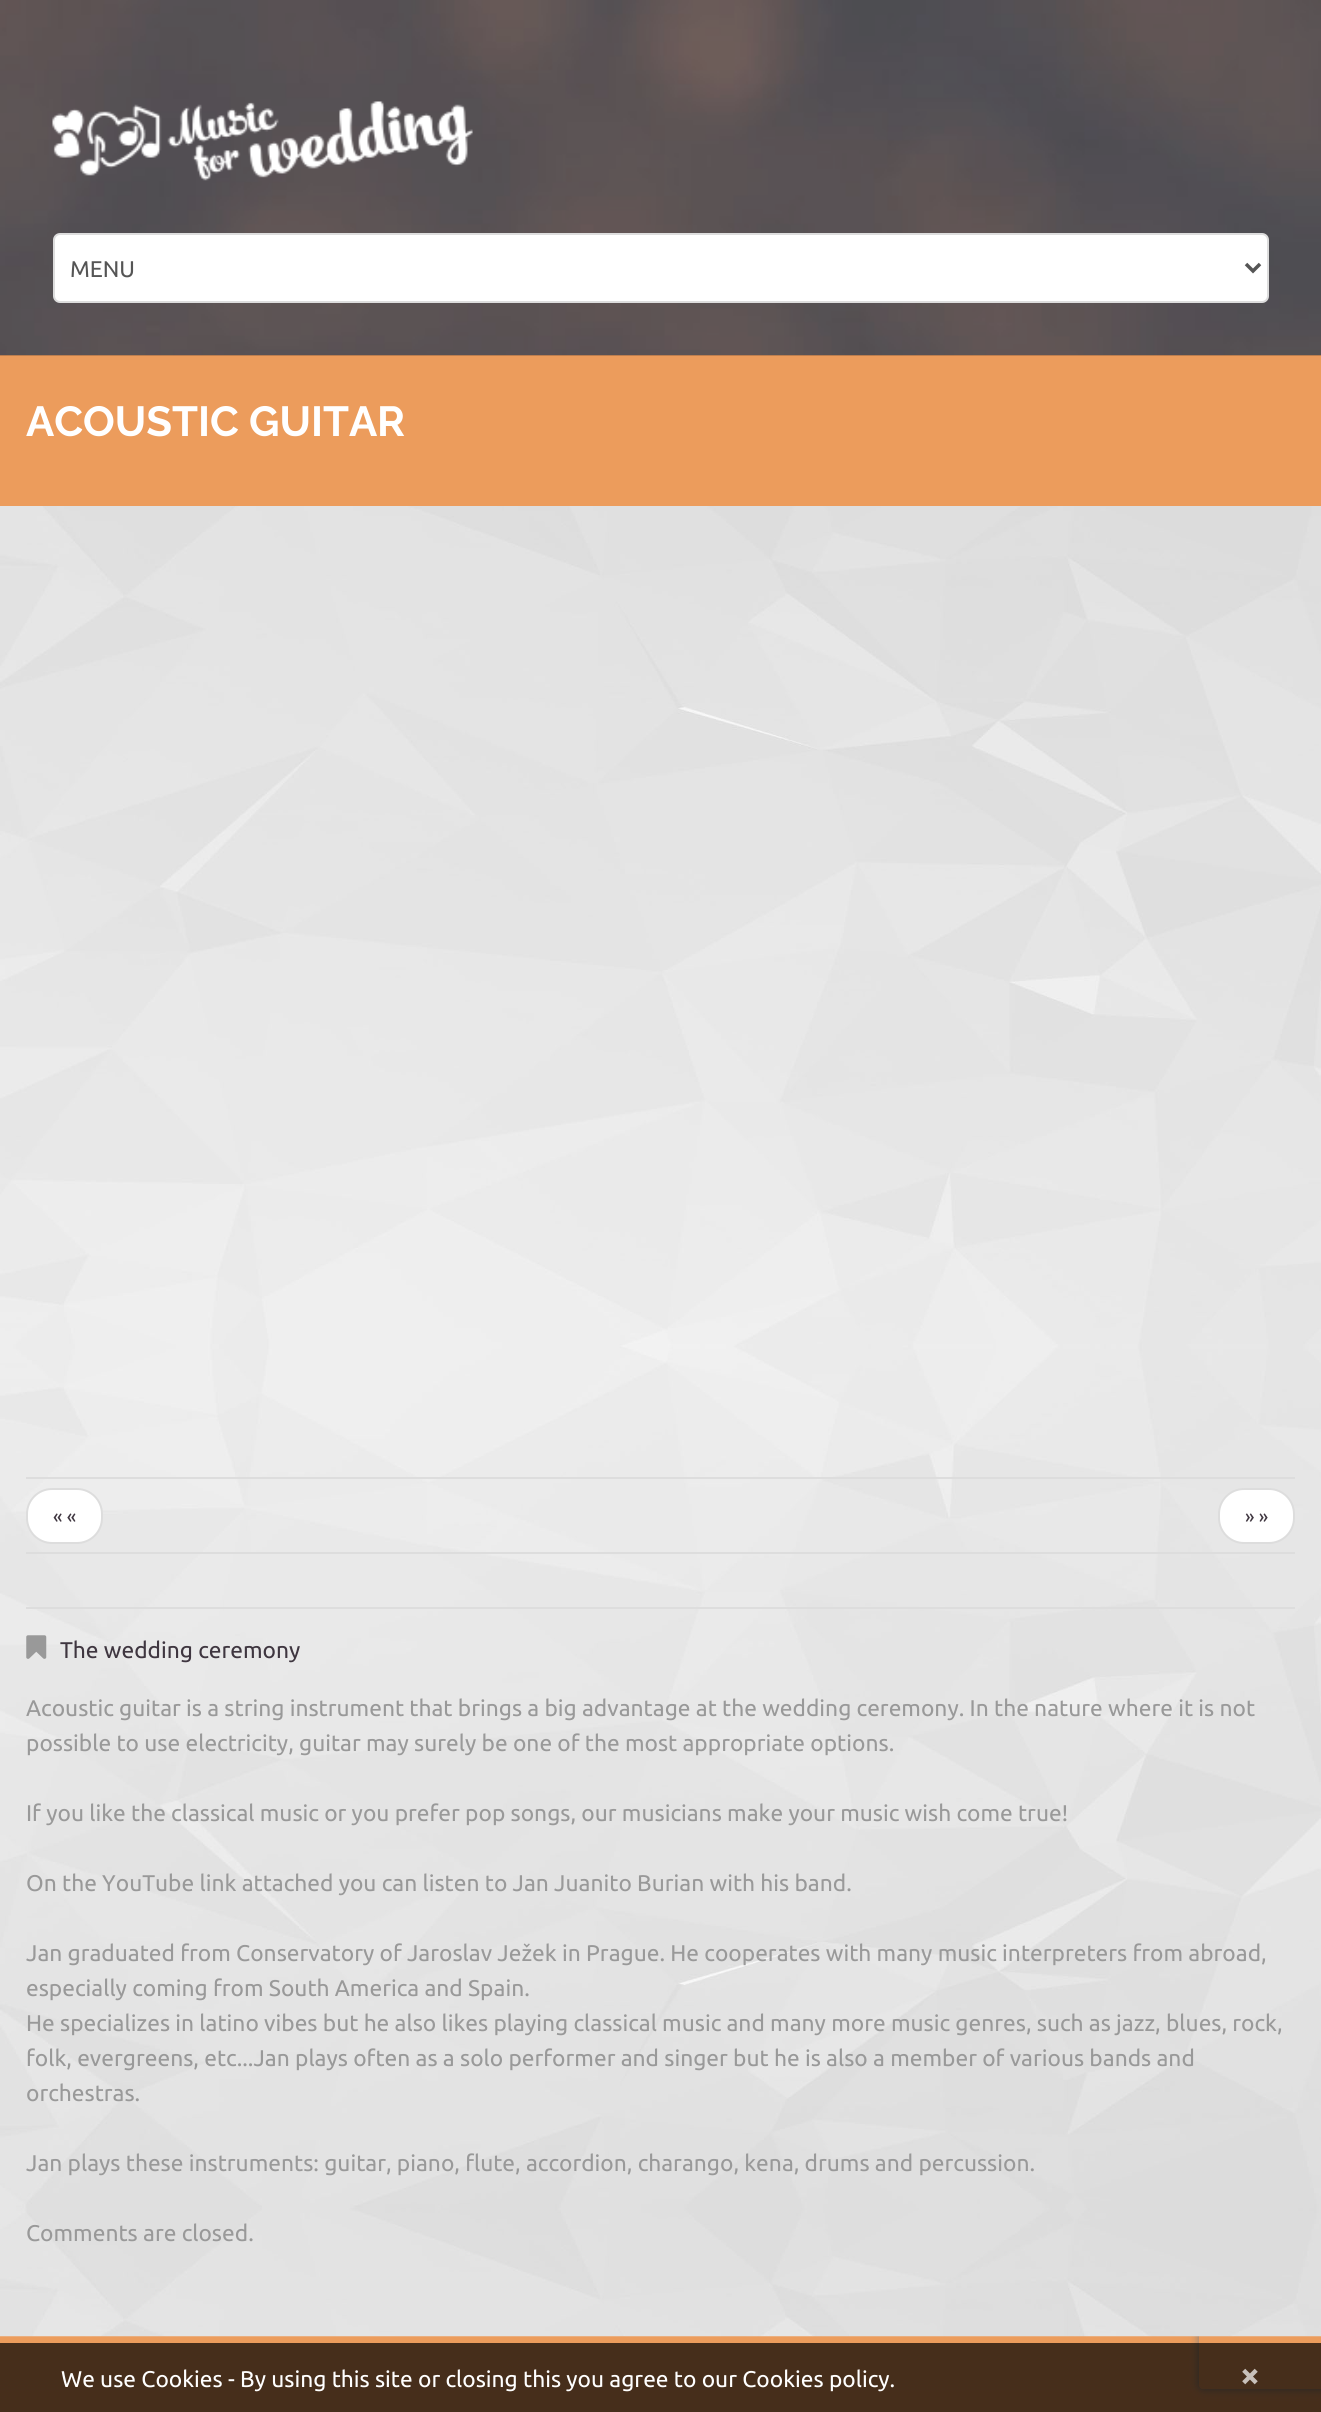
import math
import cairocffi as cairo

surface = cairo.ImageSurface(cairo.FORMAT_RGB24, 1321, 2412)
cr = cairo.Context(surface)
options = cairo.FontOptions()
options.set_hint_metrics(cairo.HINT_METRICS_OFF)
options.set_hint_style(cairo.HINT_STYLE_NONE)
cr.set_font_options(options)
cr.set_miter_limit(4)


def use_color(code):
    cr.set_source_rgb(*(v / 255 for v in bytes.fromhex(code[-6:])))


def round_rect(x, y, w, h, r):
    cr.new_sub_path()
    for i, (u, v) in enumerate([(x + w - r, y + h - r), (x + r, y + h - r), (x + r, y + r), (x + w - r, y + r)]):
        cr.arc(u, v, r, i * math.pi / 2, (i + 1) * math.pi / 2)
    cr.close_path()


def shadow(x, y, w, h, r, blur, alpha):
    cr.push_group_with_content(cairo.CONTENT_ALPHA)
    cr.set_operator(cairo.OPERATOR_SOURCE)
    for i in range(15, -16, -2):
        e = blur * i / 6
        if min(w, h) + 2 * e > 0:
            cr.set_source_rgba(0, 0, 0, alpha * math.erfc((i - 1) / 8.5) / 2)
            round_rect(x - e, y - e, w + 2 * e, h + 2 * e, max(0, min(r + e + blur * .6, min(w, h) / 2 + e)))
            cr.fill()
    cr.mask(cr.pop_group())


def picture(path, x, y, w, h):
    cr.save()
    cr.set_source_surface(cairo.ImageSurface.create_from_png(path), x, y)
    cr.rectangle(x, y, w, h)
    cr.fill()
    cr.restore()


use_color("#ec9c5c")
cr.paint()
picture("img1.png", 0, 0, 1321, 356)
picture("img2.png", 52, 101, 421, 80)
use_color("#ffffff")
round_rect(54, 234, 1214, 68, 6)
cr.fill_preserve()
use_color("#dddddd")
cr.stroke()
cr.new_path()
cr.move_to(1246, 264)
cr.line_to(1253, 271)
cr.line_to(1260, 264)
use_color("#555555")
cr.set_line_width(3.5)
cr.stroke()
cr.select_font_face("Ubuntu")
cr.set_font_size(22.75)
cr.move_to(70, 277)
cr.show_text("MENU")
cr.save()
cr.set_fill_rule(cairo.FILL_RULE_EVEN_ODD)
cr.new_path()
cr.move_to(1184, 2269)
cr.line_to(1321, 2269)
cr.line_to(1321, 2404)
cr.line_to(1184, 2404)
cr.close_path()
cr.move_to(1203, 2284)
cr.line_to(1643, 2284)
cr.curve_to(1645, 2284, 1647, 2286, 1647, 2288)
cr.line_to(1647, 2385)
cr.curve_to(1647, 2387, 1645, 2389, 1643, 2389)
cr.line_to(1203, 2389)
cr.curve_to(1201, 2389, 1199, 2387, 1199, 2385)
cr.line_to(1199, 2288)
cr.curve_to(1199, 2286, 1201, 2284, 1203, 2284)
cr.close_path()
cr.clip()
use_color("#808080")
shadow(1199, 2284, 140, 105, 4, 4.5, 1)
cr.restore()
picture("img3.png", 0, 506, 1321, 1831)
cr.select_font_face("Raleway", cairo.FONT_SLANT_NORMAL, cairo.FONT_WEIGHT_BOLD)
cr.set_font_size(42)
use_color("#ffffff")
cr.move_to(26, 436)
cr.show_text("ACOUSTIC GUITAR")
use_color("#dddddd")
cr.rectangle(26, 1477, 1269, 2)
cr.fill()
cr.rectangle(26, 1552, 1269, 2)
cr.fill()
use_color("#ffffff")
round_rect(27, 1489, 75, 54, 25)
cr.fill_preserve()
use_color("#dddddd")
cr.set_line_width(2)
cr.stroke()
cr.select_font_face("Ubuntu")
cr.set_font_size(19)
use_color("#3f3640")
cr.move_to(53, 1523)
cr.show_text("« «")
use_color("#ffffff")
round_rect(1219, 1489, 75, 54, 25)
cr.fill_preserve()
use_color("#dddddd")
cr.stroke()
use_color("#3f3640")
cr.move_to(1245, 1523)
cr.show_text("» »")
use_color("#dddddd")
cr.rectangle(26, 1607, 1269, 2)
cr.fill()
picture("img4.png", 26, 1635, 21, 24)
cr.set_font_size(22.75)
use_color("#3f3640")
cr.move_to(60, 1658)
cr.show_text("The wedding ceremony")
use_color("#999999")
cr.move_to(26, 1716)
cr.show_text("Acoustic guitar is a string instrument that brings a big advantage at the wedding ceremony. In the nature where it is not")
cr.move_to(26, 1751)
cr.show_text("possible to use electricity, guitar may surely be one of the most appropriate options.")
cr.move_to(26, 1821)
cr.show_text("If you like the classical music or you prefer pop songs, our musicians make your music wish come true!")
cr.move_to(26, 1891)
cr.show_text("On the YouTube link attached you can listen to Jan Juanito Burian with his band.")
cr.move_to(26, 1961)
cr.show_text("Jan graduated from Conservatory of Jaroslav Ježek in Prague. He cooperates with many music interpreters from abroad,")
cr.move_to(26, 1996)
cr.show_text("especially coming from South America and Spain.")
cr.move_to(26, 2031)
cr.show_text("He specializes in latino vibes but he also likes playing classical music and many more music genres, such as jazz, blues, rock,")
cr.move_to(26, 2066)
cr.show_text("folk, evergreens, etc...Jan plays often as a solo performer and singer but he is also a member of various bands and")
cr.move_to(26, 2101)
cr.show_text("orchestras.")
cr.move_to(26, 2171)
cr.show_text("Jan plays these instruments: guitar, piano, flute, accordion, charango, kena, drums and percussion.")
cr.move_to(26, 2241)
cr.show_text("Comments are closed.")
cr.set_source_rgba(0, 0, 0, 0.7)
cr.rectangle(0, 2343, 1321, 69)
cr.fill()
use_color("#ffffff")
cr.move_to(61, 2387)
cr.show_text("We use Cookies - By using this site or closing this you agree to our Cookies policy.")
cr.select_font_face("Ubuntu", cairo.FONT_SLANT_NORMAL, cairo.FONT_WEIGHT_BOLD)
cr.set_font_size(35)
use_color("#c8c1bb")
cr.move_to(1240, 2387)
cr.show_text("×")
surface.write_to_png("result.png")
